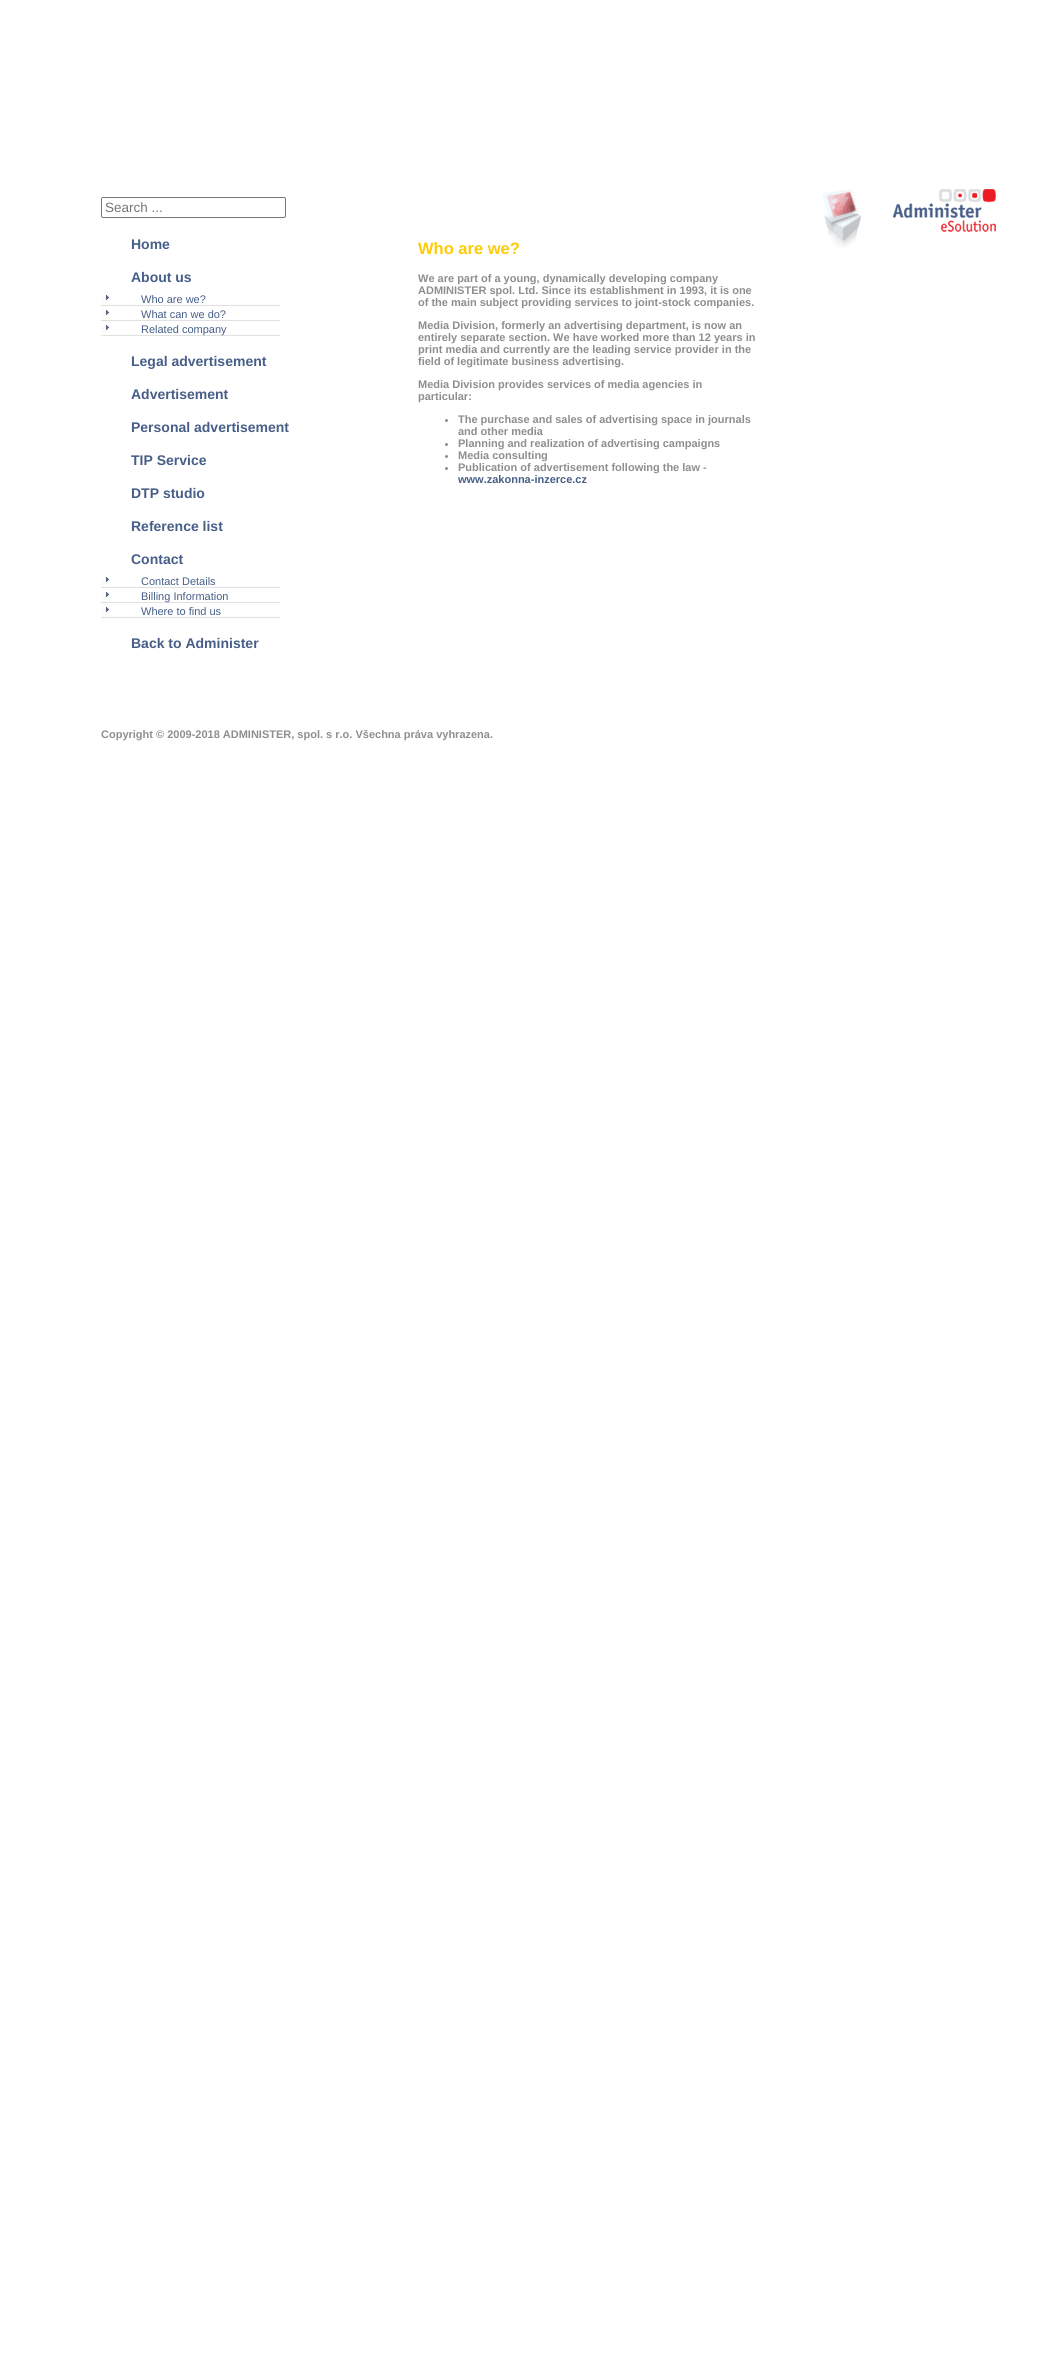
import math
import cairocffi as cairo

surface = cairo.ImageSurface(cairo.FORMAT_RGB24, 1062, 2376)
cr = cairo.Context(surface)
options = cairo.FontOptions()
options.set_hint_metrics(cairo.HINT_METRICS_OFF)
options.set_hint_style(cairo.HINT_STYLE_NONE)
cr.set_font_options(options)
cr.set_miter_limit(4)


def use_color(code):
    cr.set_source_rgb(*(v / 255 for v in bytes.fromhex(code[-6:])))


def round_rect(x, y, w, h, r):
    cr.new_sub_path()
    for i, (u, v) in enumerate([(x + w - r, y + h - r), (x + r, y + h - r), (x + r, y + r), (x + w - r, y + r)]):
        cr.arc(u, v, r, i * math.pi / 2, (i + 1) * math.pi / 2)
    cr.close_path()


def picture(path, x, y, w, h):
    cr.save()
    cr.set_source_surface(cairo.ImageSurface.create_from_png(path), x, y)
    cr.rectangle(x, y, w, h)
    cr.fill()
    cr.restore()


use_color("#ffffff")
cr.paint()
round_rect(101.5, 197.5, 184, 20, 1.5)
use_color("#767676")
cr.set_line_width(1)
cr.stroke()
cr.select_font_face("Liberation Sans")
cr.set_font_size(13.5)
use_color("#757575")
cr.move_to(105, 212)
cr.show_text("Search ...")
cr.select_font_face("Liberation Sans", cairo.FONT_SLANT_NORMAL, cairo.FONT_WEIGHT_BOLD)
cr.set_font_size(14)
use_color("#475e88")
cr.move_to(131, 249)
cr.show_text("Home")
cr.move_to(131, 282)
cr.show_text("About us")
picture("img1.png", 101, 295, 179, 11)
cr.select_font_face("Liberation Sans")
cr.set_font_size(11)
cr.move_to(141, 303)
cr.show_text("Who are we?")
picture("img1.png", 101, 310, 179, 11)
cr.move_to(141, 318)
cr.show_text("What can we do?")
picture("img1.png", 101, 325, 179, 11)
cr.move_to(141, 333)
cr.show_text("Related company")
cr.select_font_face("Liberation Sans", cairo.FONT_SLANT_NORMAL, cairo.FONT_WEIGHT_BOLD)
cr.set_font_size(14)
cr.move_to(131, 366)
cr.show_text("Legal advertisement")
cr.move_to(131, 399)
cr.show_text("Advertisement")
cr.move_to(131, 432)
cr.show_text("Personal advertisement")
cr.move_to(131, 465)
cr.show_text("TIP Service")
cr.move_to(131, 498)
cr.show_text("DTP studio")
cr.move_to(131, 531)
cr.show_text("Reference list")
cr.move_to(131, 564)
cr.show_text("Contact")
picture("img1.png", 101, 577, 179, 11)
cr.select_font_face("Liberation Sans")
cr.set_font_size(11)
cr.move_to(141, 585)
cr.show_text("Contact Details")
picture("img1.png", 101, 592, 179, 11)
cr.move_to(141, 600)
cr.show_text("Billing Information")
picture("img1.png", 101, 607, 179, 11)
cr.move_to(141, 615)
cr.show_text("Where to find us")
cr.select_font_face("Liberation Sans", cairo.FONT_SLANT_NORMAL, cairo.FONT_WEIGHT_BOLD)
cr.set_font_size(14)
cr.move_to(131, 648)
cr.show_text("Back to Administer")
cr.set_font_size(16.5)
use_color("#ffcb08")
cr.move_to(418, 254)
cr.show_text("Who are we?")
cr.set_font_size(11)
use_color("#8e8e8e")
cr.move_to(418, 282)
cr.show_text("We are part of a young, dynamically developing company")
cr.move_to(418, 294)
cr.show_text("ADMINISTER spol. Ltd. Since its establishment in 1993, it is one")
cr.move_to(418, 306)
cr.show_text("of the main subject providing services to joint-stock companies.")
cr.move_to(418, 329)
cr.show_text("Media Division, formerly an advertising department, is now an")
cr.move_to(418, 341)
cr.show_text("entirely separate section. We have worked more than 12 years in")
cr.move_to(418, 353)
cr.show_text("print media and currently are the leading service provider in the")
cr.move_to(418, 365)
cr.show_text("field of legitimate business advertising.")
cr.move_to(418, 388)
cr.show_text("Media Division provides services of media agencies in")
cr.move_to(418, 400)
cr.show_text("particular:")
cr.new_path()
cr.arc(446.5, 420.5, 1.5, 0, 2 * math.pi)
cr.fill()
cr.move_to(458, 423)
cr.show_text("The purchase and sales of advertising space in journals")
cr.move_to(458, 435)
cr.show_text("and other media")
cr.new_path()
cr.arc(446.5, 444.5, 1.5, 0, 2 * math.pi)
cr.fill()
cr.move_to(458, 447)
cr.show_text("Planning and realization of advertising campaigns")
cr.new_path()
cr.arc(446.5, 456.5, 1.5, 0, 2 * math.pi)
cr.fill()
cr.move_to(458, 459)
cr.show_text("Media consulting")
cr.new_path()
cr.arc(446.5, 468.5, 1.5, 0, 2 * math.pi)
cr.fill()
cr.move_to(458, 471)
cr.show_text("Publication of advertisement following the law -")
use_color("#475e88")
cr.move_to(458, 483)
cr.show_text("www.zakonna-inzerce.cz")
picture("img2.png", 822, 189, 174, 60)
use_color("#8e8e8e")
cr.move_to(101, 738)
cr.show_text("Copyright © 2009-2018 ADMINISTER, spol. s r.o. Všechna práva vyhrazena.")
surface.write_to_png("result.png")
